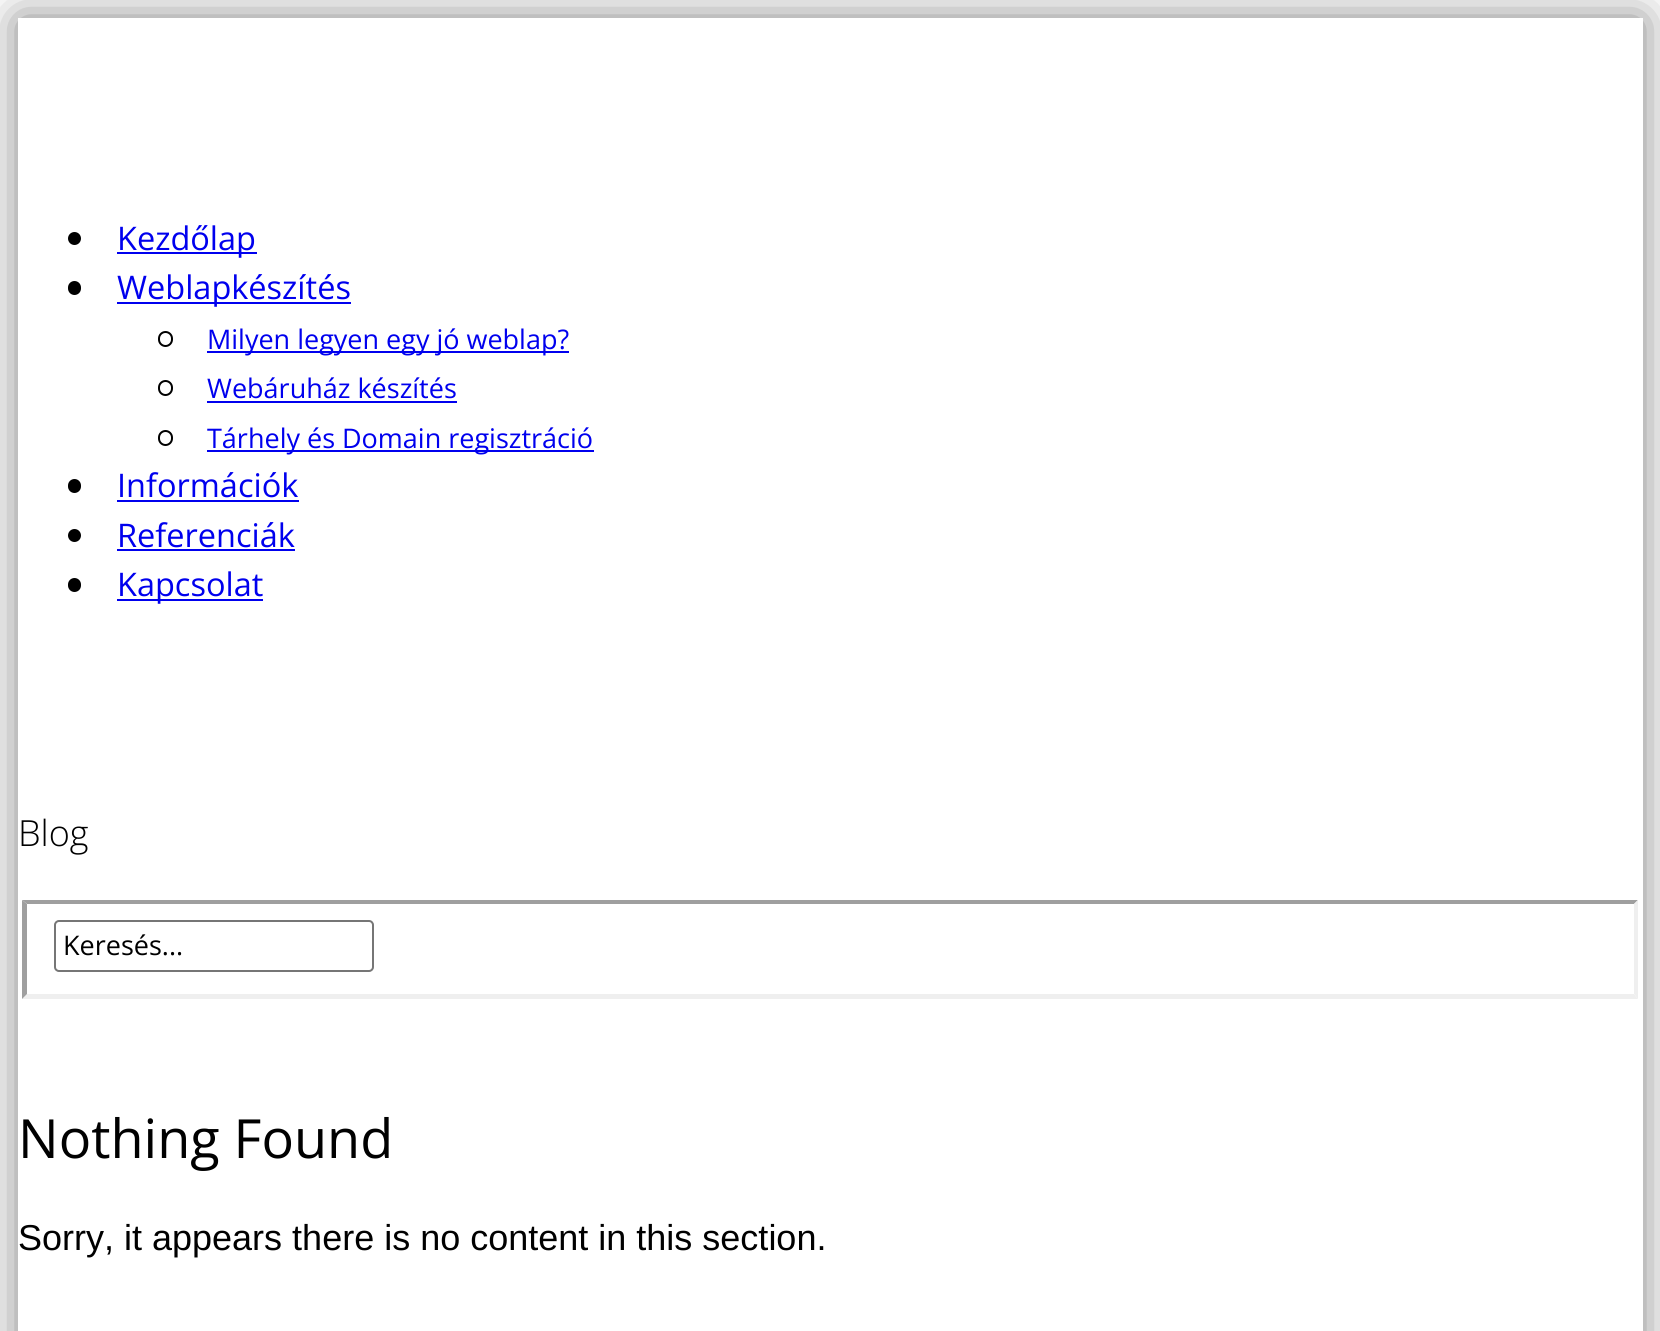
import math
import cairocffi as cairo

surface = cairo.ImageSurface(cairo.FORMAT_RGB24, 1660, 1331)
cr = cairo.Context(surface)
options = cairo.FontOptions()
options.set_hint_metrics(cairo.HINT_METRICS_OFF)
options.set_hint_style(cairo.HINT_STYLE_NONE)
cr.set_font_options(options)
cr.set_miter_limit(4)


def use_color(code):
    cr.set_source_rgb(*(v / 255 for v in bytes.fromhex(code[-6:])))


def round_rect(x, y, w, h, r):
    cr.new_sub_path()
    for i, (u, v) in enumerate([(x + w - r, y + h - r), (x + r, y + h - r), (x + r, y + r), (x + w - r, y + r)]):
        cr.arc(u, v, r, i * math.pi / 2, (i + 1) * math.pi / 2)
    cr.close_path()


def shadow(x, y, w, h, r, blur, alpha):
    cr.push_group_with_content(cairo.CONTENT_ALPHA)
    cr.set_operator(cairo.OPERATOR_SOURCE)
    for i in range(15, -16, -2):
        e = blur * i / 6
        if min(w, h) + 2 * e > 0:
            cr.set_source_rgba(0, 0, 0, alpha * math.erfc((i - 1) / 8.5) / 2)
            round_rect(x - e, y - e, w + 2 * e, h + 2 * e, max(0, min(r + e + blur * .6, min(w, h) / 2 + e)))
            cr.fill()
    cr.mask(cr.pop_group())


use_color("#ffffff")
cr.paint()
cr.save()
cr.set_fill_rule(cairo.FILL_RULE_EVEN_ODD)
cr.new_path()
cr.move_to(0, 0)
cr.line_to(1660, 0)
cr.line_to(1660, 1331)
cr.line_to(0, 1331)
cr.close_path()
cr.move_to(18, 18)
cr.line_to(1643, 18)
cr.line_to(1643, 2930)
cr.line_to(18, 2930)
cr.close_path()
cr.clip()
use_color("#000000")
shadow(18, 18, 1625, 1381, 0, 22.5, 0.5)
cr.restore()
use_color("#000000")
cr.arc(74.5, 238.5, 6.5, 0, 2 * math.pi)
cr.fill()
use_color("#0000ee")
cr.rectangle(117, 252, 140, 2)
cr.fill()
cr.select_font_face("Open Sans")
cr.set_font_size(32.5)
cr.move_to(117, 250)
cr.show_text("Kezdőlap")
use_color("#000000")
round_rect(68, 281, 13, 14, 6.5)
cr.fill()
use_color("#0000ee")
cr.rectangle(117, 302, 234, 2)
cr.fill()
cr.move_to(117, 299)
cr.show_text("Weblapkészítés")
round_rect(159, 332, 13, 14, 6.5)
use_color("#000000")
cr.stroke()
use_color("#0000ee")
cr.rectangle(207, 351, 362, 2)
cr.fill()
cr.set_font_size(27)
cr.move_to(207, 349)
cr.show_text("Milyen legyen egy jó weblap?")
round_rect(159, 381, 13, 14, 6.5)
use_color("#000000")
cr.stroke()
use_color("#0000ee")
cr.move_to(207, 398)
cr.show_text("Webáruház készítés")
cr.rectangle(207, 401, 250, 2)
cr.fill()
round_rect(159, 431, 13, 14, 6.5)
use_color("#000000")
cr.stroke()
use_color("#0000ee")
cr.rectangle(207, 450, 387, 2)
cr.fill()
cr.move_to(207, 448)
cr.show_text("Tárhely és Domain regisztráció")
use_color("#000000")
round_rect(68, 479, 13, 14, 6.5)
cr.fill()
cr.set_font_size(32.5)
use_color("#0000ee")
cr.move_to(117, 497)
cr.show_text("Információk")
cr.rectangle(117, 500, 182, 2)
cr.fill()
use_color("#000000")
cr.arc(74.5, 535.5, 6.5, 0, 2 * math.pi)
cr.fill()
use_color("#0000ee")
cr.move_to(117, 547)
cr.show_text("Referenciák")
cr.rectangle(117, 549, 178, 2)
cr.fill()
use_color("#000000")
round_rect(68, 578, 13, 14, 6.5)
cr.fill()
use_color("#0000ee")
cr.rectangle(117, 599, 146, 2)
cr.fill()
cr.move_to(117, 596)
cr.show_text("Kapcsolat")
cr.select_font_face("Open Sans Light")
cr.set_font_size(36)
use_color("#000000")
cr.move_to(18, 846)
cr.show_text("Blog")
use_color("#9f9f9f")
cr.new_path()
cr.move_to(22, 900)
cr.line_to(1638, 900)
cr.line_to(1634, 904)
cr.line_to(27, 904)
cr.close_path()
cr.fill()
use_color("#efefef")
cr.new_path()
cr.move_to(1638, 900)
cr.line_to(1638, 999)
cr.line_to(1634, 994)
cr.line_to(1634, 904)
cr.close_path()
cr.fill()
cr.new_path()
cr.move_to(1638, 999)
cr.line_to(22, 999)
cr.line_to(27, 994)
cr.line_to(1634, 994)
cr.close_path()
cr.fill()
use_color("#9f9f9f")
cr.new_path()
cr.move_to(22, 999)
cr.line_to(22, 900)
cr.line_to(27, 904)
cr.line_to(27, 994)
cr.close_path()
cr.fill()
round_rect(55, 921, 318, 50, 4)
use_color("#767676")
cr.stroke()
cr.select_font_face("Open Sans")
cr.set_font_size(27)
use_color("#000000")
cr.move_to(63, 955)
cr.show_text("Keresés...")
cr.set_font_size(54)
cr.move_to(18, 1158)
cr.show_text("Nothing Found")
cr.select_font_face("Liberation Sans")
cr.set_font_size(36)
cr.move_to(18, 1250)
cr.show_text("Sorry, it appears there is no content in this section.")
surface.write_to_png("result.png")
